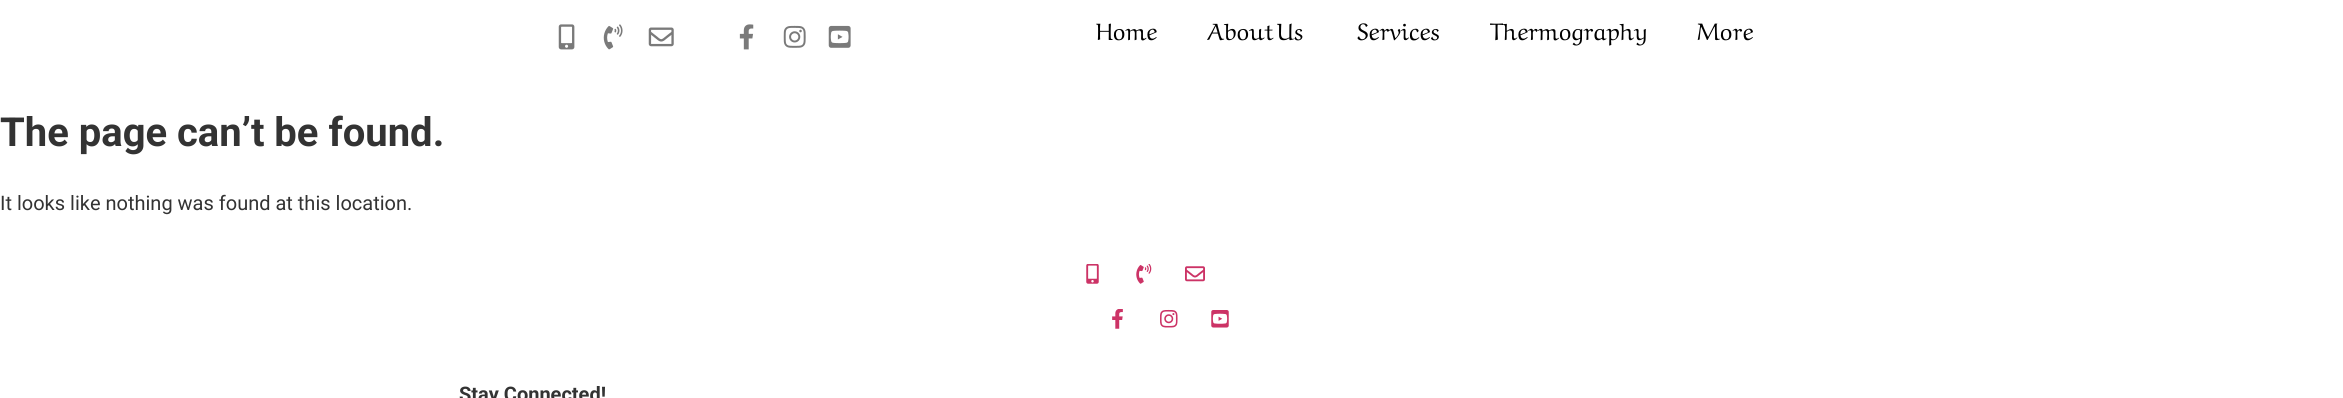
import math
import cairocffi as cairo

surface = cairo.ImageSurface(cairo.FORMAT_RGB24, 2343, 398)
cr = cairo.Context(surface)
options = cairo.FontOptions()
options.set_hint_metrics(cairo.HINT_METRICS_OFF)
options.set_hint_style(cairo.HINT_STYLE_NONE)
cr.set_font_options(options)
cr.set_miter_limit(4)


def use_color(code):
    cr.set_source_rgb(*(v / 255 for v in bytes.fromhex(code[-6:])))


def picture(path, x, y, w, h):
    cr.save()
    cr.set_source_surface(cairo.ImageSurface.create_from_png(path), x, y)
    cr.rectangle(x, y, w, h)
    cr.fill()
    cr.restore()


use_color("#ffffff")
cr.paint()
picture("img1.png", 558, 24, 17, 26)
picture("img2.png", 603, 24, 20, 26)
picture("img3.png", 648, 27, 26, 20)
picture("img4.png", 739, 24, 15, 26)
picture("img5.png", 783, 25, 23, 23)
picture("img6.png", 828, 25, 23, 23)
cr.select_font_face("Aref Ruqaa")
cr.set_font_size(23.75)
use_color("#000000")
cr.move_to(1096, 40)
cr.show_text("Home")
cr.move_to(1207, 40)
cr.show_text("About Us")
cr.move_to(1357, 40)
cr.show_text("Services")
cr.move_to(1490, 40)
cr.show_text("Thermography")
cr.move_to(1697, 40)
cr.show_text("More")
cr.select_font_face("Roboto", cairo.FONT_SLANT_NORMAL, cairo.FONT_WEIGHT_BOLD)
cr.set_font_size(40)
use_color("#333333")
cr.move_to(0, 146)
cr.show_text("The page can’t be found.")
cr.select_font_face("Roboto")
cr.set_font_size(20)
cr.move_to(0, 210)
cr.show_text("It looks like nothing was found at this location.")
picture("img7.png", 1086, 264, 13, 20)
picture("img8.png", 1136, 264, 16, 20)
picture("img9.png", 1185, 266, 20, 16)
picture("img10.png", 1112, 309, 11, 20)
picture("img11.png", 1160, 309, 18, 19)
picture("img12.png", 1211, 310, 18, 18)
cr.select_font_face("Roboto", cairo.FONT_SLANT_NORMAL, cairo.FONT_WEIGHT_BOLD)
cr.move_to(459, 401)
cr.show_text("Stay Connected!")
surface.write_to_png("result.png")
